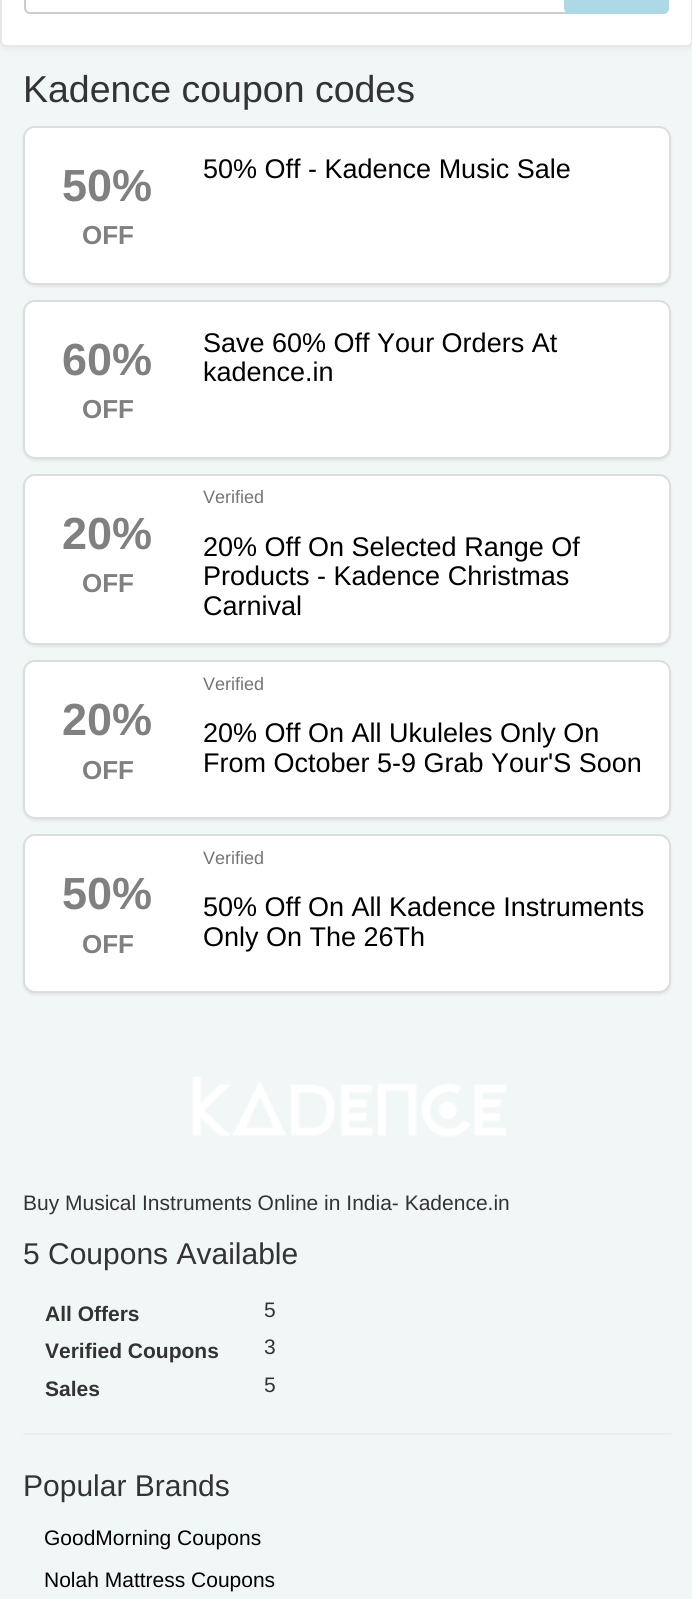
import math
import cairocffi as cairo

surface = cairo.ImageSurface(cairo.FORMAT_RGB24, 692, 1599)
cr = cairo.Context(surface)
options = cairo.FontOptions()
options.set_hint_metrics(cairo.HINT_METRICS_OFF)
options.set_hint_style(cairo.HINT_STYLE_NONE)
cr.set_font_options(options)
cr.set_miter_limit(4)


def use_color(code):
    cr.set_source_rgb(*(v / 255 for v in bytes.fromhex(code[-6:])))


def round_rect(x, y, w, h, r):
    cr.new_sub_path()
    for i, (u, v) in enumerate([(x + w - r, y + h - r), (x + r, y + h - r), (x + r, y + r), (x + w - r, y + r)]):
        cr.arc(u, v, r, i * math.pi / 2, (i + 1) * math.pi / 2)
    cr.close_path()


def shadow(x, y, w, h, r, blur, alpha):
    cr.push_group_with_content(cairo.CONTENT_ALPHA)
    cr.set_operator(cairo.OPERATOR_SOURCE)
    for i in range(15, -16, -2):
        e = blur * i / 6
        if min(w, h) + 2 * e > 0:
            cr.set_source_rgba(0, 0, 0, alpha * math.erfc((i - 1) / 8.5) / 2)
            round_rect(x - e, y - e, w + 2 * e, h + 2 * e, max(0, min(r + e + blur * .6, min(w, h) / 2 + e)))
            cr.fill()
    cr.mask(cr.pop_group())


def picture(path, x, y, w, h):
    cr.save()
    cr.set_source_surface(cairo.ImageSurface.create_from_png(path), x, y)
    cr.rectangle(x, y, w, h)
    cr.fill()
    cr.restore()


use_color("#f1f6f7")
cr.paint()
use_color("#000000")
shadow(0, -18, 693, 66, 6, 4, 0.07)
use_color("#ffffff")
round_rect(1, -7, 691, 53, 5)
cr.fill_preserve()
use_color("#e7e7e7")
cr.stroke()
round_rect(25, -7, 643, 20, 5)
use_color("#cccccc")
cr.stroke()
use_color("#add8e6")
round_rect(565, -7, 103, 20, 5)
cr.fill_preserve()
cr.stroke()
cr.select_font_face("Liberation Sans")
cr.set_font_size(37.5)
use_color("#333333")
cr.move_to(23, 102)
cr.show_text("Kadence coupon codes")
use_color("#000000")
shadow(23, 128, 648, 159, 12, 1.5, 0.07)
use_color("#ffffff")
round_rect(24, 127, 646, 157, 11)
cr.fill_preserve()
use_color("#dddddd")
cr.stroke()
cr.select_font_face("Liberation Sans", cairo.FONT_SLANT_NORMAL, cairo.FONT_WEIGHT_BOLD)
cr.set_font_size(45)
use_color("#808080")
cr.move_to(62, 201)
cr.show_text("50%")
cr.set_font_size(26)
cr.move_to(82, 244)
cr.show_text("OFF")
cr.select_font_face("Liberation Sans")
cr.set_font_size(27)
use_color("#000000")
cr.move_to(203, 178)
cr.show_text("50% Off - Kadence Music Sale")
use_color("#000000")
shadow(23, 302, 648, 159, 12, 1.5, 0.07)
use_color("#ffffff")
round_rect(24, 301, 646, 157, 11)
cr.fill_preserve()
use_color("#dddddd")
cr.stroke()
cr.select_font_face("Liberation Sans", cairo.FONT_SLANT_NORMAL, cairo.FONT_WEIGHT_BOLD)
cr.set_font_size(45)
use_color("#808080")
cr.move_to(62, 375)
cr.show_text("60%")
cr.set_font_size(26)
cr.move_to(82, 418)
cr.show_text("OFF")
cr.select_font_face("Liberation Sans")
cr.set_font_size(27)
use_color("#000000")
cr.move_to(203, 352)
cr.show_text("Save 60% Off Your Orders At")
cr.move_to(203, 381)
cr.show_text("kadence.in")
use_color("#000000")
shadow(23, 476, 648, 171, 12, 1.5, 0.07)
use_color("#ffffff")
round_rect(24, 475, 646, 169, 11)
cr.fill_preserve()
use_color("#dddddd")
cr.stroke()
cr.select_font_face("Liberation Sans", cairo.FONT_SLANT_NORMAL, cairo.FONT_WEIGHT_BOLD)
cr.set_font_size(45)
use_color("#808080")
cr.move_to(62, 549)
cr.show_text("20%")
cr.set_font_size(26)
cr.move_to(82, 592)
cr.show_text("OFF")
cr.select_font_face("Liberation Sans")
cr.set_font_size(18)
use_color("#757575")
cr.move_to(203, 503)
cr.show_text("Verified")
cr.set_font_size(27)
use_color("#000000")
cr.move_to(203, 556)
cr.show_text("20% Off On Selected Range Of")
cr.move_to(203, 585)
cr.show_text("Products - Kadence Christmas")
cr.move_to(203, 615)
cr.show_text("Carnival")
use_color("#000000")
shadow(23, 662, 648, 159, 12, 1.5, 0.07)
use_color("#ffffff")
round_rect(24, 661, 646, 157, 11)
cr.fill_preserve()
use_color("#dddddd")
cr.stroke()
cr.select_font_face("Liberation Sans", cairo.FONT_SLANT_NORMAL, cairo.FONT_WEIGHT_BOLD)
cr.set_font_size(45)
use_color("#808080")
cr.move_to(62, 735)
cr.show_text("20%")
cr.set_font_size(26)
cr.move_to(82, 779)
cr.show_text("OFF")
cr.select_font_face("Liberation Sans")
cr.set_font_size(18)
use_color("#757575")
cr.move_to(203, 690)
cr.show_text("Verified")
cr.set_font_size(27)
use_color("#000000")
cr.move_to(203, 742)
cr.show_text("20% Off On All Ukuleles Only On")
cr.move_to(203, 772)
cr.show_text("From October 5-9 Grab Your'S Soon")
use_color("#000000")
shadow(23, 836, 648, 159, 12, 1.5, 0.07)
use_color("#ffffff")
round_rect(24, 835, 646, 157, 11)
cr.fill_preserve()
use_color("#dddddd")
cr.stroke()
cr.select_font_face("Liberation Sans", cairo.FONT_SLANT_NORMAL, cairo.FONT_WEIGHT_BOLD)
cr.set_font_size(45)
use_color("#808080")
cr.move_to(62, 909)
cr.show_text("50%")
cr.set_font_size(26)
cr.move_to(82, 953)
cr.show_text("OFF")
cr.select_font_face("Liberation Sans")
cr.set_font_size(18)
use_color("#757575")
cr.move_to(203, 864)
cr.show_text("Verified")
cr.set_font_size(27)
use_color("#000000")
cr.move_to(203, 916)
cr.show_text("50% Off On All Kadence Instruments")
cr.move_to(203, 946)
cr.show_text("Only On The 26Th")
picture("img1.png", 192, 1076, 315, 61)
cr.set_font_size(21)
use_color("#333333")
cr.move_to(23, 1210)
cr.show_text("Buy Musical Instruments Online in India- Kadence.in")
cr.set_font_size(30)
cr.move_to(23, 1264)
cr.show_text("5 Coupons Available")
cr.select_font_face("Liberation Sans", cairo.FONT_SLANT_NORMAL, cairo.FONT_WEIGHT_BOLD)
cr.set_font_size(21)
cr.move_to(45, 1321)
cr.show_text("All Offers")
cr.select_font_face("Liberation Sans")
cr.move_to(264, 1317)
cr.show_text("5")
cr.select_font_face("Liberation Sans", cairo.FONT_SLANT_NORMAL, cairo.FONT_WEIGHT_BOLD)
cr.move_to(45, 1358)
cr.show_text("Verified Coupons")
cr.select_font_face("Liberation Sans")
cr.move_to(264, 1354)
cr.show_text("3")
cr.select_font_face("Liberation Sans", cairo.FONT_SLANT_NORMAL, cairo.FONT_WEIGHT_BOLD)
cr.move_to(45, 1396)
cr.show_text("Sales")
cr.select_font_face("Liberation Sans")
cr.move_to(264, 1392)
cr.show_text("5")
use_color("#eeeeee")
cr.rectangle(23, 1433, 648, 2)
cr.fill()
cr.set_font_size(30)
use_color("#333333")
cr.move_to(23, 1496)
cr.show_text("Popular Brands")
cr.set_font_size(21)
use_color("#000000")
cr.move_to(44, 1545)
cr.show_text("GoodMorning Coupons")
cr.move_to(44, 1587)
cr.show_text("Nolah Mattress Coupons")
surface.write_to_png("result.png")
